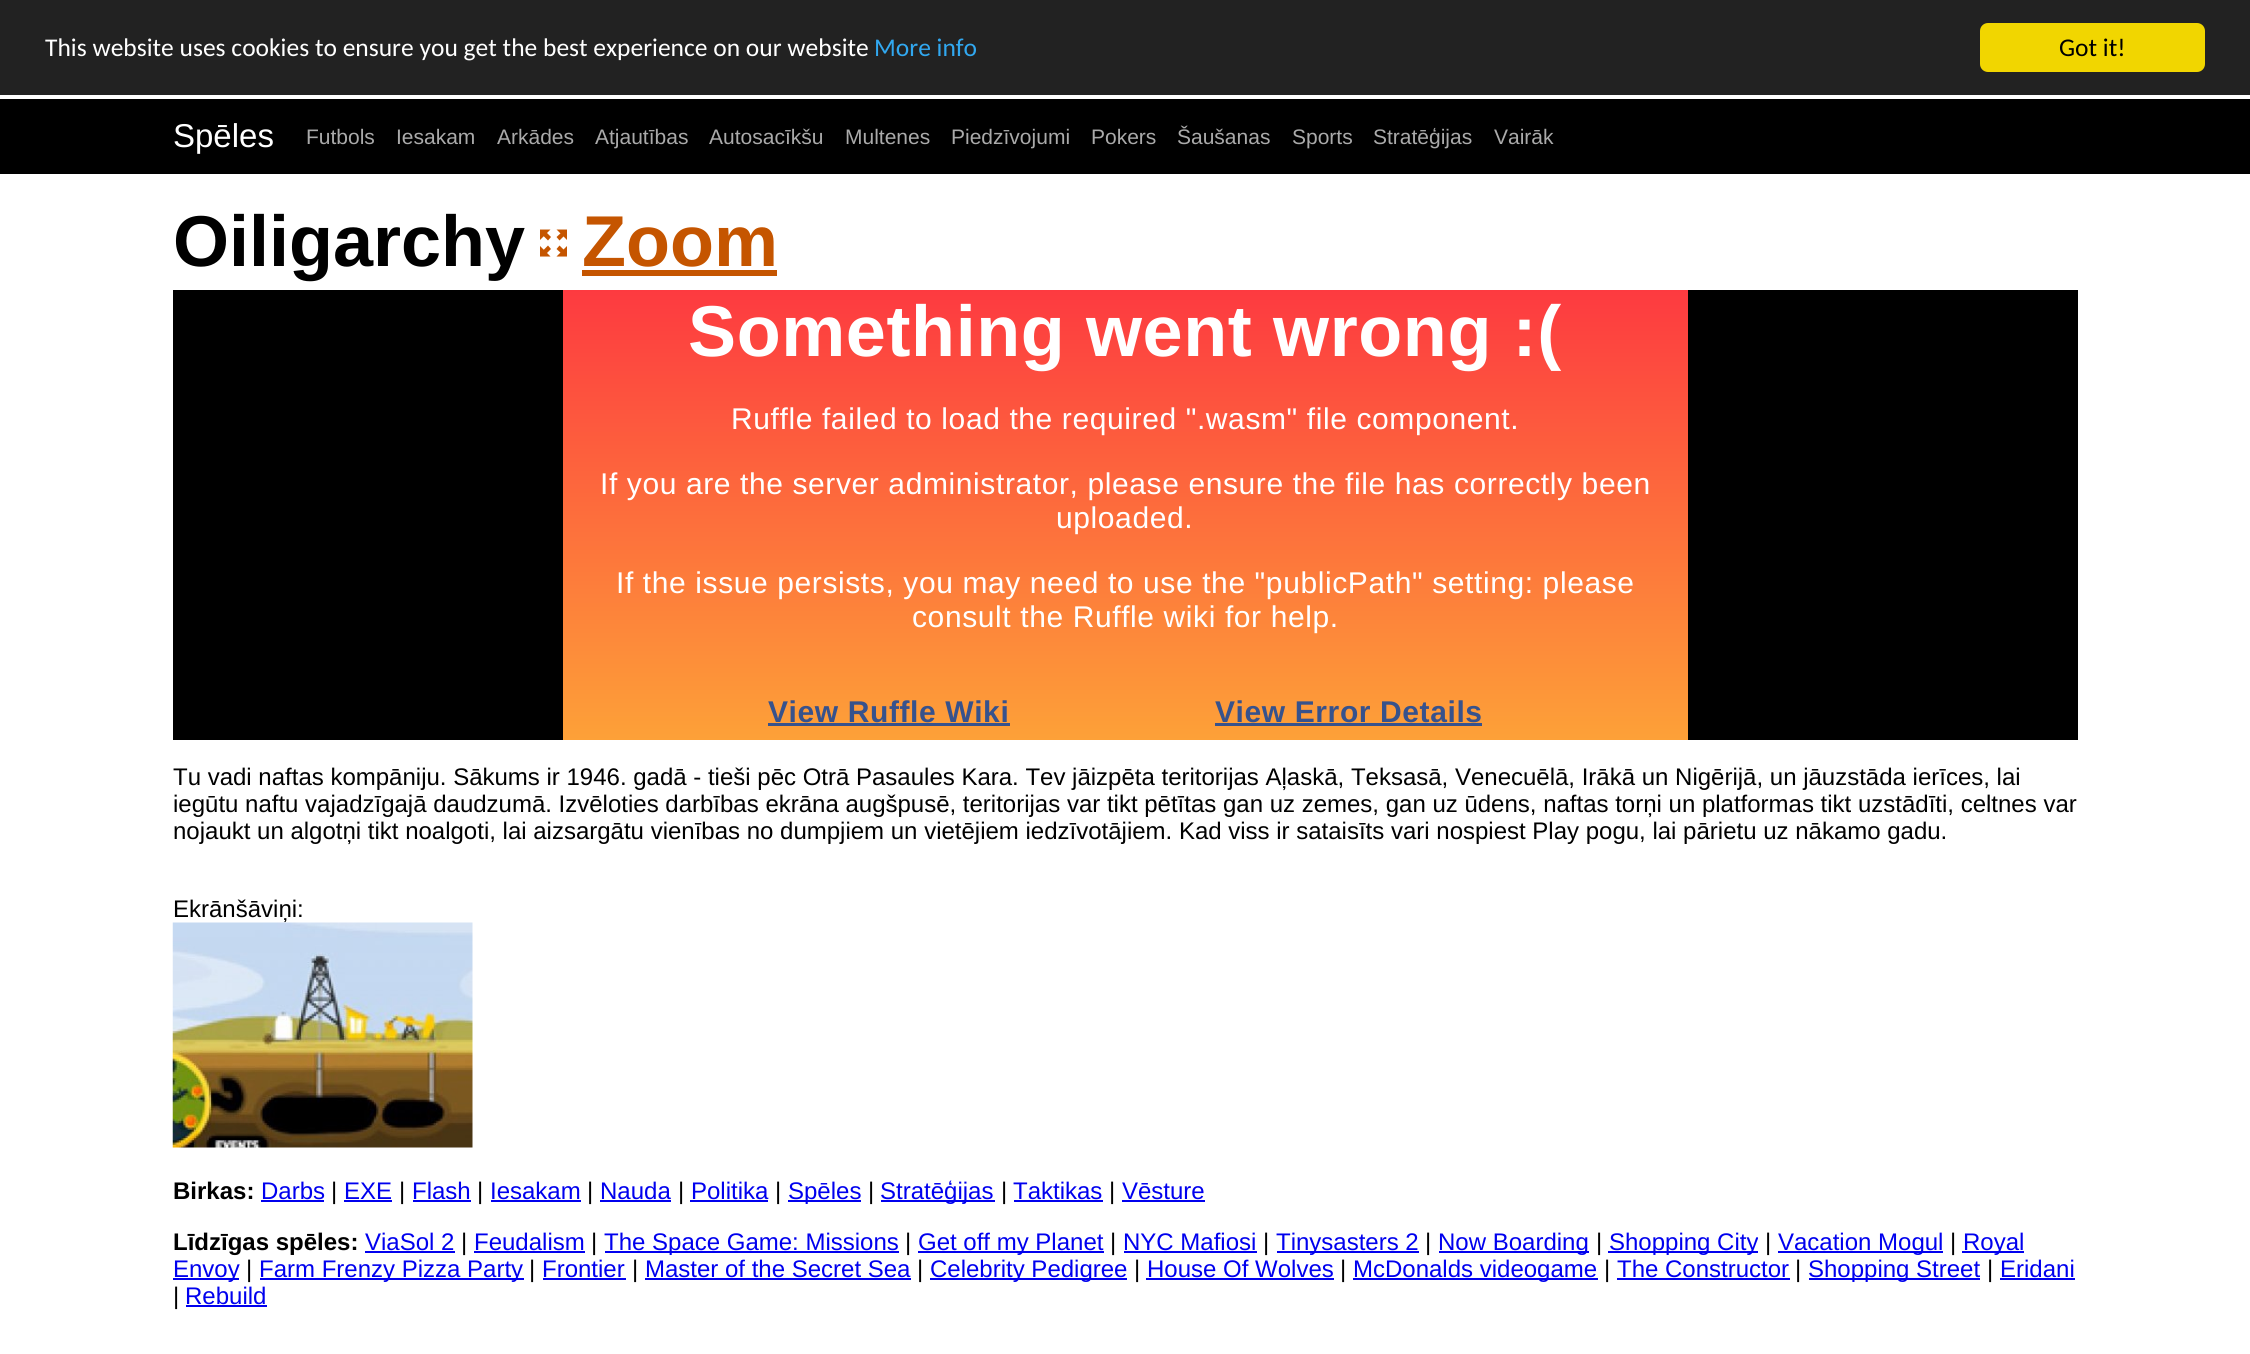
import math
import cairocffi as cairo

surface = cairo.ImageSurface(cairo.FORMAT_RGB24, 2250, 1354)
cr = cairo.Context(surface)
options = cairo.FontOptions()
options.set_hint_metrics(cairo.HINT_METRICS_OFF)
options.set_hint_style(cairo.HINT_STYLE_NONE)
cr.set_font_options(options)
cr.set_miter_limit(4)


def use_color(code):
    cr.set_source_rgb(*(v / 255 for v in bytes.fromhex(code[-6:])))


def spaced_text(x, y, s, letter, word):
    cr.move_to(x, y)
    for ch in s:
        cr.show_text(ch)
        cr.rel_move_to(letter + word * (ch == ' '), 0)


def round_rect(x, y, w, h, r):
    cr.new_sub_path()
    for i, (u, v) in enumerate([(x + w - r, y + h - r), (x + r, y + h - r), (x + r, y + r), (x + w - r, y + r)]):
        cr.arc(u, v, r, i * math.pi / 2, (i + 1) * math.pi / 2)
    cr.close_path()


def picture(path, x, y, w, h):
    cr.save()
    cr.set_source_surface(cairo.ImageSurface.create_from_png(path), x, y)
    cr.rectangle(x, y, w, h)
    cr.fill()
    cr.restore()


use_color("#ffffff")
cr.paint()
use_color("#222222")
cr.rectangle(0, 0, 2250, 95)
cr.fill()
cr.select_font_face("Carlito")
cr.set_font_size(25.5)
use_color("#ffffff")
cr.move_to(45, 56)
cr.show_text("This website uses cookies to ensure you get the best experience on our website")
use_color("#31a8f0")
cr.move_to(874, 56)
cr.show_text("More info")
use_color("#f1d600")
round_rect(1980, 23, 225, 49, 8)
cr.fill()
use_color("#000000")
cr.move_to(2059, 56)
cr.show_text("Got it!")
cr.rectangle(0, 99, 2250, 75)
cr.fill()
cr.select_font_face("Liberation Sans")
cr.set_font_size(33)
use_color("#ffffff")
cr.move_to(173, 147)
cr.show_text("Spēles")
cr.set_font_size(21)
use_color("#aaaaaa")
cr.move_to(306, 144)
cr.show_text("Futbols")
cr.move_to(396, 144)
cr.show_text("Iesakam")
cr.move_to(497, 144)
cr.show_text("Arkādes")
cr.move_to(595, 144)
cr.show_text("Atjautības")
cr.move_to(709, 144)
cr.show_text("Autosacīkšu")
cr.move_to(845, 144)
cr.show_text("Multenes")
cr.move_to(951, 144)
cr.show_text("Piedzīvojumi")
cr.move_to(1091, 144)
cr.show_text("Pokers")
cr.move_to(1177, 144)
cr.show_text("Šaušanas")
cr.move_to(1292, 144)
cr.show_text("Sports")
cr.move_to(1373, 144)
cr.show_text("Stratēģijas")
cr.move_to(1494, 144)
cr.show_text("Vairāk")
cr.select_font_face("Liberation Sans", cairo.FONT_SLANT_NORMAL, cairo.FONT_WEIGHT_BOLD)
cr.set_font_size(72)
use_color("#000000")
cr.move_to(173, 266)
cr.show_text("Oiligarchy")
use_color("#c55500")
cr.new_path()
cr.move_to(562, 232)
cr.line_to(565, 235)
cr.line_to(559.5, 240.5)
cr.line_to(556.5, 237)
cr.close_path()
cr.move_to(548, 245.5)
cr.line_to(551, 249)
cr.line_to(546, 254)
cr.line_to(542.5, 251)
cr.close_path()
cr.fill()
cr.new_path()
cr.move_to(542.5, 235)
cr.line_to(546, 232)
cr.line_to(551, 237)
cr.line_to(548, 240.5)
cr.close_path()
cr.move_to(556.5, 249)
cr.line_to(559.5, 245.5)
cr.line_to(565, 251)
cr.line_to(562, 254)
cr.close_path()
cr.fill()
cr.new_path()
cr.move_to(567, 229.5)
cr.line_to(567, 240)
cr.line_to(556.5, 229.5)
cr.close_path()
cr.move_to(540, 240)
cr.line_to(540, 229.5)
cr.line_to(550.5, 229.5)
cr.close_path()
cr.move_to(567, 246)
cr.line_to(567, 256.5)
cr.line_to(556.5, 256.5)
cr.close_path()
cr.fill()
cr.move_to(582, 266)
cr.show_text("Zoom")
cr.rectangle(582, 270, 195, 6)
cr.fill()
cr.new_path()
cr.move_to(540, 256.5)
cr.line_to(540, 246)
cr.line_to(550.5, 256.5)
cr.close_path()
cr.fill()
use_color("#000000")
cr.rectangle(173, 290, 1905, 450)
cr.fill()
gradient = cairo.LinearGradient(1125, 289, 1125, 740)
gradient.add_color_stop_rgba(0, 0.992, 0.227, 0.251, 1)
gradient.add_color_stop_rgba(1, 0.992, 0.631, 0.22, 1)
cr.set_source(gradient)
cr.rectangle(563, 290, 1125, 450)
cr.fill()
use_color("#ffffff")
spaced_text(688, 356, "Something went wrong :(", 0.6, 0)
cr.select_font_face("Liberation Sans")
cr.set_font_size(30)
spaced_text(731, 429, "Ruffle failed to load the required \".wasm\" file component.", 0.6, 0)
spaced_text(600, 494, "If you are the server administrator, please ensure the file has correctly been", 0.6, 0)
spaced_text(1056, 528, "uploaded.", 0.6, 0)
spaced_text(616, 593, "If the issue persists, you may need to use the \"publicPath\" setting: please", 0.6, 0)
spaced_text(912, 627, "consult the Ruffle wiki for help.", 0.6, 0)
cr.select_font_face("Liberation Sans", cairo.FONT_SLANT_NORMAL, cairo.FONT_WEIGHT_BOLD)
use_color("#37528c")
spaced_text(768, 722, "View Ruffle Wiki", 0.6, 0)
cr.rectangle(768, 723, 242, 3)
cr.fill()
spaced_text(1215, 722, "View Error Details", 0.6, 0)
cr.rectangle(1215, 723, 267, 3)
cr.fill()
cr.select_font_face("Liberation Sans")
cr.set_font_size(24)
use_color("#000000")
cr.move_to(173, 785)
cr.show_text("Tu vadi naftas kompāniju. Sākums ir 1946. gadā - tieši pēc Otrā Pasaules Kara. Tev jāizpēta teritorijas Aļaskā, Teksasā, Venecuēlā, Irākā un Nigērijā, un jāuzstāda ierīces, lai")
cr.move_to(173, 812)
cr.show_text("iegūtu naftu vajadzīgajā daudzumā. Izvēloties darbības ekrāna augšpusē, teritorijas var tikt pētītas gan uz zemes, gan uz ūdens, naftas torņi un platformas tikt uzstādīti, celtnes var")
cr.move_to(173, 839)
cr.show_text("nojaukt un algotņi tikt noalgoti, lai aizsargātu vienības no dumpjiem un vietējiem iedzīvotājiem. Kad viss ir sataisīts vari nospiest Play pogu, lai pārietu uz nākamo gadu.")
cr.move_to(173, 917)
cr.show_text("Ekrānšāviņi:")
picture("img1.png", 172, 922, 301, 226)
cr.select_font_face("Liberation Sans", cairo.FONT_SLANT_NORMAL, cairo.FONT_WEIGHT_BOLD)
cr.move_to(173, 1199)
cr.show_text("Birkas:")
cr.select_font_face("Liberation Sans")
use_color("#0000ee")
cr.move_to(261, 1199)
cr.show_text("Darbs")
cr.rectangle(261, 1200, 63, 2)
cr.fill()
use_color("#000000")
cr.move_to(331, 1199)
cr.show_text("|")
use_color("#0000ee")
cr.move_to(344, 1199)
cr.show_text("EXE")
cr.rectangle(344, 1200, 48, 2)
cr.fill()
use_color("#000000")
cr.move_to(399, 1199)
cr.show_text("|")
use_color("#0000ee")
cr.move_to(412, 1199)
cr.show_text("Flash")
cr.rectangle(413, 1200, 58, 2)
cr.fill()
use_color("#000000")
cr.move_to(477, 1199)
cr.show_text("|")
use_color("#0000ee")
cr.move_to(490, 1199)
cr.show_text("Iesakam")
cr.rectangle(491, 1200, 90, 2)
cr.fill()
use_color("#000000")
cr.move_to(587, 1199)
cr.show_text("|")
use_color("#0000ee")
cr.move_to(600, 1199)
cr.show_text("Nauda")
cr.rectangle(600, 1200, 71, 2)
cr.fill()
use_color("#000000")
cr.move_to(678, 1199)
cr.show_text("|")
use_color("#0000ee")
cr.move_to(691, 1199)
cr.show_text("Politika")
cr.rectangle(690, 1200, 78, 2)
cr.fill()
use_color("#000000")
cr.move_to(775, 1199)
cr.show_text("|")
use_color("#0000ee")
cr.rectangle(788, 1200, 73, 2)
cr.fill()
cr.move_to(788, 1199)
cr.show_text("Spēles")
use_color("#000000")
cr.move_to(868, 1199)
cr.show_text("|")
use_color("#0000ee")
cr.rectangle(881, 1200, 114, 2)
cr.fill()
cr.move_to(880, 1199)
cr.show_text("Stratēģijas")
use_color("#000000")
cr.move_to(1001, 1199)
cr.show_text("|")
use_color("#0000ee")
cr.move_to(1013, 1199)
cr.show_text("Taktikas")
cr.rectangle(1014, 1200, 89, 2)
cr.fill()
use_color("#000000")
cr.move_to(1109, 1199)
cr.show_text("|")
use_color("#0000ee")
cr.move_to(1122, 1199)
cr.show_text("Vēsture")
cr.rectangle(1122, 1200, 83, 2)
cr.fill()
cr.select_font_face("Liberation Sans", cairo.FONT_SLANT_NORMAL, cairo.FONT_WEIGHT_BOLD)
use_color("#000000")
cr.move_to(173, 1250)
cr.show_text("Līdzīgas spēles:")
cr.select_font_face("Liberation Sans")
use_color("#0000ee")
cr.move_to(365, 1250)
cr.show_text("ViaSol 2")
cr.rectangle(365, 1251, 90, 2)
cr.fill()
use_color("#000000")
cr.move_to(461, 1250)
cr.show_text("|")
use_color("#0000ee")
cr.move_to(474, 1250)
cr.show_text("Feudalism")
cr.rectangle(474, 1251, 111, 2)
cr.fill()
use_color("#000000")
cr.move_to(591, 1250)
cr.show_text("|")
use_color("#0000ee")
cr.rectangle(605, 1251, 294, 2)
cr.fill()
cr.move_to(604, 1250)
cr.show_text("The Space Game: Missions")
use_color("#000000")
cr.move_to(905, 1250)
cr.show_text("|")
use_color("#0000ee")
cr.rectangle(918, 1251, 186, 2)
cr.fill()
cr.move_to(918, 1250)
cr.show_text("Get off my Planet")
use_color("#000000")
cr.move_to(1110, 1250)
cr.show_text("|")
use_color("#0000ee")
cr.move_to(1123, 1250)
cr.show_text("NYC Mafiosi")
cr.rectangle(1124, 1251, 133, 2)
cr.fill()
use_color("#000000")
cr.move_to(1263, 1250)
cr.show_text("|")
use_color("#0000ee")
cr.rectangle(1277, 1251, 142, 2)
cr.fill()
cr.move_to(1276, 1250)
cr.show_text("Tinysasters 2")
use_color("#000000")
cr.move_to(1425, 1250)
cr.show_text("|")
use_color("#0000ee")
cr.rectangle(1439, 1251, 150, 2)
cr.fill()
cr.move_to(1438, 1250)
cr.show_text("Now Boarding")
use_color("#000000")
cr.move_to(1596, 1250)
cr.show_text("|")
use_color("#0000ee")
cr.rectangle(1608, 1251, 150, 2)
cr.fill()
cr.move_to(1609, 1250)
cr.show_text("Shopping City")
use_color("#000000")
cr.move_to(1765, 1250)
cr.show_text("|")
use_color("#0000ee")
cr.rectangle(1778, 1251, 165, 2)
cr.fill()
cr.move_to(1778, 1250)
cr.show_text("Vacation Mogul")
use_color("#000000")
cr.move_to(1950, 1250)
cr.show_text("|")
use_color("#0000ee")
cr.rectangle(1962, 1251, 62, 2)
cr.fill()
cr.move_to(1963, 1250)
cr.show_text("Royal")
cr.rectangle(173, 1278, 66, 2)
cr.fill()
cr.move_to(173, 1277)
cr.show_text("Envoy")
use_color("#000000")
cr.move_to(246, 1277)
cr.show_text("|")
use_color("#0000ee")
cr.rectangle(260, 1278, 264, 2)
cr.fill()
cr.move_to(259, 1277)
cr.show_text("Farm Frenzy Pizza Party")
use_color("#000000")
cr.move_to(529, 1277)
cr.show_text("|")
use_color("#0000ee")
cr.move_to(542, 1277)
cr.show_text("Frontier")
cr.rectangle(543, 1278, 83, 2)
cr.fill()
use_color("#000000")
cr.move_to(632, 1277)
cr.show_text("|")
use_color("#0000ee")
cr.move_to(645, 1277)
cr.show_text("Master of the Secret Sea")
cr.rectangle(645, 1278, 266, 2)
cr.fill()
use_color("#000000")
cr.move_to(917, 1277)
cr.show_text("|")
use_color("#0000ee")
cr.rectangle(930, 1278, 197, 2)
cr.fill()
cr.move_to(930, 1277)
cr.show_text("Celebrity Pedigree")
use_color("#000000")
cr.move_to(1134, 1277)
cr.show_text("|")
use_color("#0000ee")
cr.move_to(1147, 1277)
cr.show_text("House Of Wolves")
cr.rectangle(1146, 1278, 188, 2)
cr.fill()
use_color("#000000")
cr.move_to(1340, 1277)
cr.show_text("|")
use_color("#0000ee")
cr.rectangle(1353, 1278, 245, 2)
cr.fill()
cr.move_to(1353, 1277)
cr.show_text("McDonalds videogame")
use_color("#000000")
cr.move_to(1604, 1277)
cr.show_text("|")
use_color("#0000ee")
cr.move_to(1617, 1277)
cr.show_text("The Constructor")
cr.rectangle(1617, 1278, 173, 2)
cr.fill()
use_color("#000000")
cr.move_to(1795, 1277)
cr.show_text("|")
use_color("#0000ee")
cr.rectangle(1809, 1278, 171, 2)
cr.fill()
cr.move_to(1808, 1277)
cr.show_text("Shopping Street")
use_color("#000000")
cr.move_to(1987, 1277)
cr.show_text("|")
use_color("#0000ee")
cr.move_to(2000, 1277)
cr.show_text("Eridani")
cr.rectangle(2000, 1278, 75, 2)
cr.fill()
use_color("#000000")
cr.move_to(173, 1304)
cr.show_text("|")
use_color("#0000ee")
cr.move_to(185, 1304)
cr.show_text("Rebuild")
cr.rectangle(186, 1305, 81, 2)
cr.fill()
surface.write_to_png("result.png")
